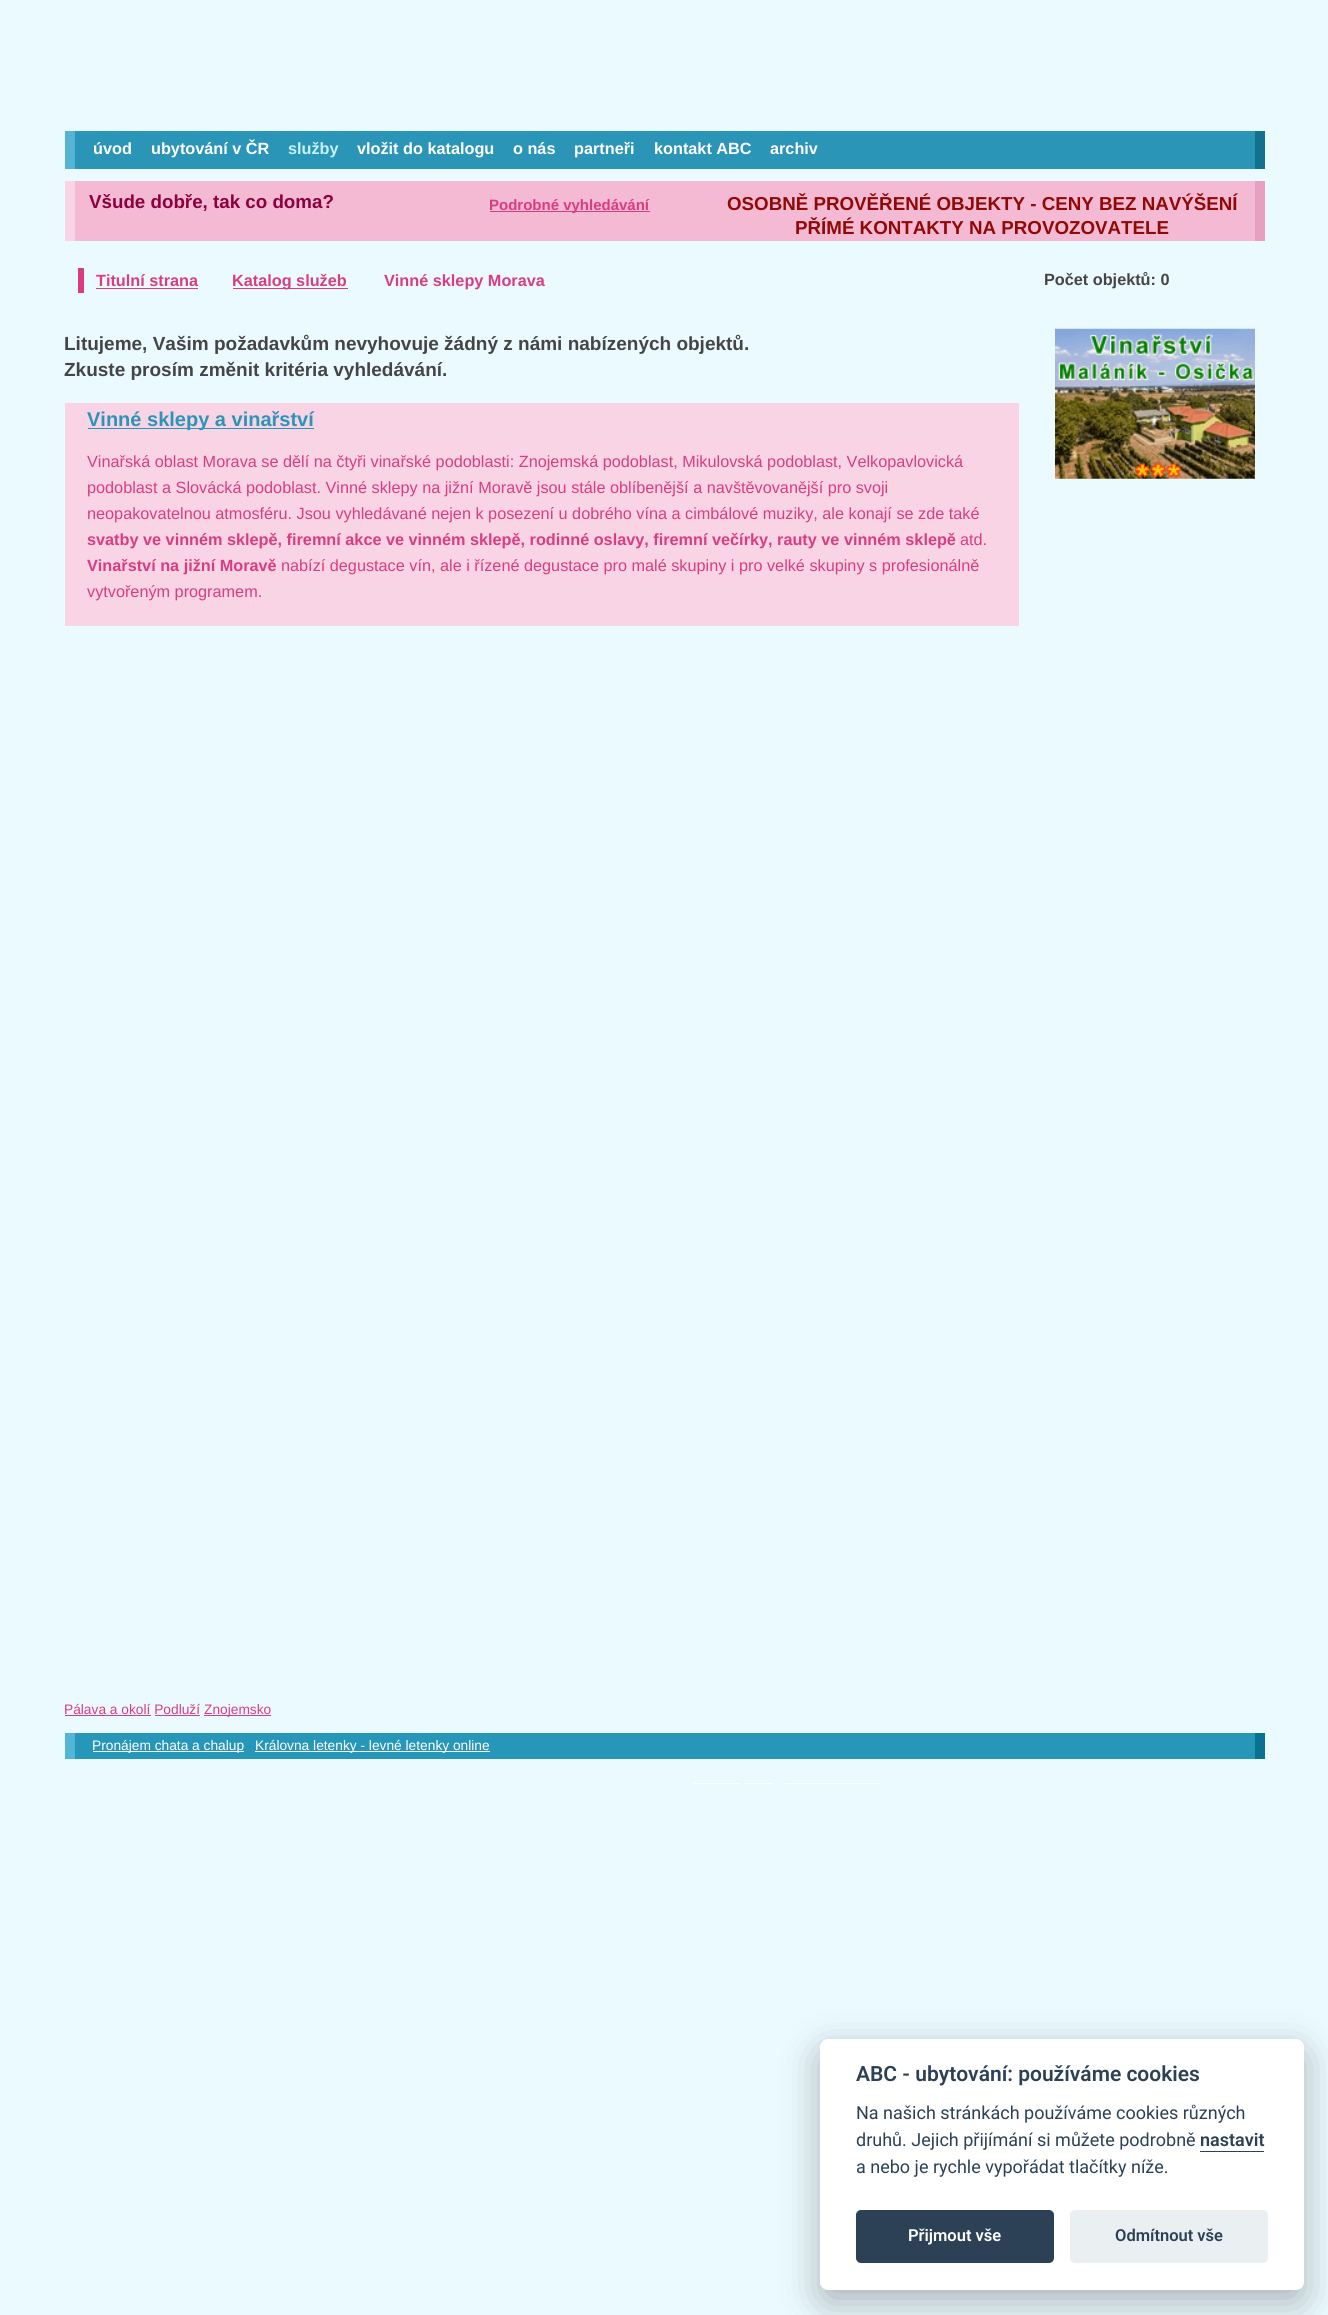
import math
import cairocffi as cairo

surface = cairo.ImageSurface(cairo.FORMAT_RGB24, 1328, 2315)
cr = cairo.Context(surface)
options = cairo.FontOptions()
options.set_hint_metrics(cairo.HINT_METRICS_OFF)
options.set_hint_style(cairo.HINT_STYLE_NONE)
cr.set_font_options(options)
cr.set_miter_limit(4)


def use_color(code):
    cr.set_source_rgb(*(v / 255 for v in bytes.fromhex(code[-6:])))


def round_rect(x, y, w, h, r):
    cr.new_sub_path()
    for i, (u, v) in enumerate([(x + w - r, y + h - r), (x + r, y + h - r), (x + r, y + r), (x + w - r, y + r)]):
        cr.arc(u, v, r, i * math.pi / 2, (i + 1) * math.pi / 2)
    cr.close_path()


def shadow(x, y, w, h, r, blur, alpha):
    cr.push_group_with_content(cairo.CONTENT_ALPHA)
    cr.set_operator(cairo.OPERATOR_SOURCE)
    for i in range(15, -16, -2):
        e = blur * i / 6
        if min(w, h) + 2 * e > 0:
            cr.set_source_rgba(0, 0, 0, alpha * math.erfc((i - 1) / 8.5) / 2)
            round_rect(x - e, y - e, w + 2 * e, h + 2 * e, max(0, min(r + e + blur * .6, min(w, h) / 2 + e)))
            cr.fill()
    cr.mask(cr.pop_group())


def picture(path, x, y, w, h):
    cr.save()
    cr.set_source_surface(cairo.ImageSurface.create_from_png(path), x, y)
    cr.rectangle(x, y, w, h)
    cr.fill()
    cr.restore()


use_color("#ebfaff")
cr.paint()
use_color("#2b95b8")
cr.rectangle(75, 131, 1180, 38)
cr.fill()
use_color("#137190")
cr.rectangle(1255, 131, 10, 38)
cr.fill()
use_color("#55b4d4")
cr.rectangle(65, 131, 10, 38)
cr.fill()
cr.select_font_face("Liberation Sans", cairo.FONT_SLANT_NORMAL, cairo.FONT_WEIGHT_BOLD)
cr.set_font_size(16.25)
use_color("#ffffff")
cr.move_to(93, 154)
cr.show_text("úvod")
cr.move_to(151, 154)
cr.show_text("ubytování v ČR")
use_color("#c9f1ff")
cr.move_to(288, 154)
cr.show_text("služby")
use_color("#ffffff")
cr.move_to(357, 154)
cr.show_text("vložit do katalogu")
cr.move_to(513, 154)
cr.show_text("o nás")
cr.move_to(574, 154)
cr.show_text("partneři")
cr.move_to(654, 154)
cr.show_text("kontakt ABC")
cr.move_to(770, 154)
cr.show_text("archiv")
use_color("#f4b9d3")
cr.rectangle(75, 181, 1180, 60)
cr.fill()
use_color("#e9a0c0")
cr.rectangle(1255, 181, 10, 60)
cr.fill()
use_color("#f9d4e4")
cr.rectangle(65, 181, 10, 60)
cr.fill()
cr.set_font_size(18.75)
use_color("#8b003e")
cr.move_to(89, 208)
cr.show_text("Všude dobře, tak co doma?")
use_color("#d93c82")
cr.rectangle(490, 211, 160, 1)
cr.fill()
cr.set_font_size(15)
cr.move_to(489, 210)
cr.show_text("Podrobné vyhledávání")
cr.set_font_size(18.75)
use_color("#900907")
cr.move_to(727, 210)
cr.show_text("OSOBNĚ PROVĚŘENÉ OBJEKTY - CENY BEZ NAVÝŠENÍ")
cr.move_to(795, 234)
cr.show_text("PŘÍMÉ KONTAKTY NA PROVOZOVATELE")
use_color("#d93c82")
cr.rectangle(78, 268, 6, 25)
cr.fill()
cr.set_font_size(16.25)
cr.move_to(96, 286)
cr.show_text("Titulní strana")
cr.rectangle(96, 288, 102, 1)
cr.fill()
cr.rectangle(233, 288, 115, 1)
cr.fill()
cr.move_to(232, 286)
cr.show_text("Katalog služeb")
cr.move_to(384, 286)
cr.show_text("Vinné sklepy Morava")
use_color("#454545")
cr.move_to(1044, 285)
cr.show_text("Počet objektů: 0")
cr.set_font_size(19)
cr.move_to(64, 350)
cr.show_text("Litujeme, Vašim požadavkům nevyhovuje žádný z námi nabízených objektů.")
cr.move_to(64, 376)
cr.show_text("Zkuste prosím změnit kritéria vyhledávání.")
use_color("#f9d4e4")
cr.rectangle(65, 403, 954, 223)
cr.fill()
use_color("#2b95b8")
cr.rectangle(88, 428, 226, 1)
cr.fill()
cr.set_font_size(20)
cr.move_to(87, 426)
cr.show_text("Vinné sklepy a vinařství")
cr.select_font_face("Liberation Sans")
cr.set_font_size(16.25)
use_color("#d93c82")
cr.move_to(87, 467)
cr.show_text("Vinařská oblast Morava se dělí na čtyři vinařské podoblasti: Znojemská podoblast, Mikulovská podoblast, Velkopavlovická")
cr.move_to(87, 493)
cr.show_text("podoblast a Slovácká podoblast. Vinné sklepy na jižní Moravě jsou stále oblíbenější a navštěvovanější pro svoji")
cr.move_to(87, 519)
cr.show_text("neopakovatelnou atmosféru. Jsou vyhledávané nejen k posezení u dobrého vína a cimbálové muziky, ale konají se zde také")
cr.select_font_face("Liberation Sans", cairo.FONT_SLANT_NORMAL, cairo.FONT_WEIGHT_BOLD)
cr.move_to(87, 545)
cr.show_text("svatby ve vinném sklepě, firemní akce ve vinném sklepě, rodinné oslavy, firemní večírky, rauty ve vinném sklepě")
cr.select_font_face("Liberation Sans")
cr.move_to(960, 545)
cr.show_text("atd.")
cr.select_font_face("Liberation Sans", cairo.FONT_SLANT_NORMAL, cairo.FONT_WEIGHT_BOLD)
cr.move_to(87, 571)
cr.show_text("Vinařství na jižní Moravě")
cr.select_font_face("Liberation Sans")
cr.move_to(281, 571)
cr.show_text("nabízí degustace vín, ale i řízené degustace pro malé skupiny i pro velké skupiny s profesionálně")
cr.move_to(87, 597)
cr.show_text("vytvořeným programem.")
picture("img1.png", 1055, 328, 200, 151)
cr.set_font_size(13.75)
cr.move_to(64, 1714)
cr.show_text("Pálava a okolí Podluží")
cr.rectangle(65, 1715, 86, 1)
cr.fill()
cr.rectangle(204, 1715, 67, 1)
cr.fill()
cr.move_to(204, 1714)
cr.show_text("Znojemsko")
cr.rectangle(155, 1715, 45, 1)
cr.fill()
use_color("#2697b9")
cr.rectangle(75, 1733, 1180, 26)
cr.fill()
use_color("#0a7291")
cr.rectangle(1255, 1733, 10, 26)
cr.fill()
use_color("#54b6d5")
cr.rectangle(65, 1733, 10, 26)
cr.fill()
use_color("#ffffff")
cr.rectangle(93, 1751, 151, 1)
cr.fill()
cr.move_to(92, 1750)
cr.show_text("Pronájem chata a chalup")
cr.rectangle(255, 1751, 235, 1)
cr.fill()
cr.move_to(255, 1750)
cr.show_text("Královna letenky - levné letenky online")
cr.rectangle(694, 1783, 46, 1)
cr.fill()
cr.rectangle(744, 1783, 29, 1)
cr.fill()
cr.rectangle(785, 1783, 96, 1)
cr.fill()
use_color("#020203")
shadow(820, 2051, 484, 252, 8, 19, 0.28)
use_color("#ffffff")
round_rect(820, 2039, 484, 251, 8)
cr.fill()
cr.select_font_face("Roboto SemiBold")
cr.set_font_size(21)
use_color("#2d4156")
cr.move_to(856, 2081)
cr.show_text("ABC - ubytování: používáme cookies")
cr.select_font_face("Roboto")
cr.set_font_size(18)
cr.move_to(856, 2119)
cr.show_text("Na našich stránkách používáme cookies různých")
cr.move_to(856, 2146)
cr.show_text("druhů. Jejich přijímání si můžete podrobně")
cr.select_font_face("Roboto SemiBold")
cr.move_to(1200, 2146)
cr.show_text("nastavit")
cr.rectangle(1200, 2151, 64, 1)
cr.fill()
cr.select_font_face("Roboto")
cr.move_to(856, 2173)
cr.show_text("a nebo je rychle vypořádat tlačítky níže.")
round_rect(856, 2210, 198, 53, 5)
cr.fill()
cr.select_font_face("Roboto SemiBold")
cr.set_font_size(16.5)
use_color("#ffffff")
cr.move_to(908, 2241)
cr.show_text("Přijmout vše")
use_color("#eaeff2")
round_rect(1070, 2210, 198, 53, 5)
cr.fill()
use_color("#2d4156")
cr.move_to(1115, 2241)
cr.show_text("Odmítnout vše")
surface.write_to_png("result.png")
